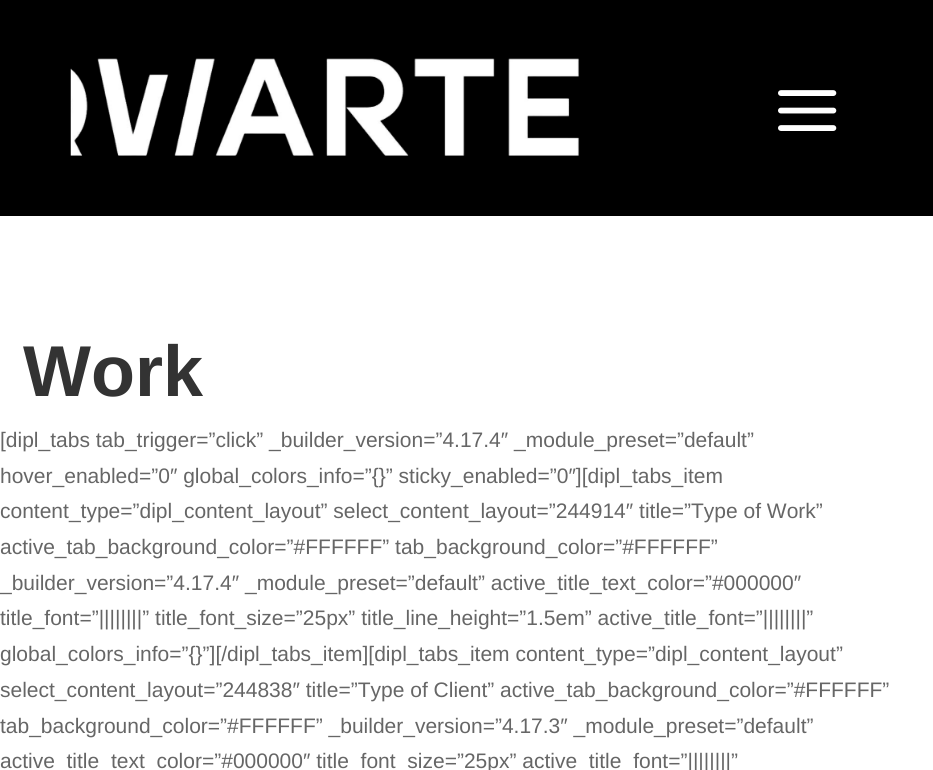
import math
import cairocffi as cairo

surface = cairo.ImageSurface(cairo.FORMAT_RGB24, 933, 770)
cr = cairo.Context(surface)
options = cairo.FontOptions()
options.set_hint_metrics(cairo.HINT_METRICS_OFF)
options.set_hint_style(cairo.HINT_STYLE_NONE)
cr.set_font_options(options)
cr.set_miter_limit(4)


def use_color(code):
    cr.set_source_rgb(*(v / 255 for v in bytes.fromhex(code[-6:])))


def picture(path, x, y, w, h):
    cr.save()
    cr.set_source_surface(cairo.ImageSurface.create_from_png(path), x, y)
    cr.rectangle(x, y, w, h)
    cr.fill()
    cr.restore()


use_color("#ffffff")
cr.paint()
use_color("#000000")
cr.rectangle(0, 0, 933, 216)
cr.fill()
picture("img1.png", 70, 58, 510, 98)
picture("img2.png", 778, 90, 59, 41)
cr.select_font_face("Liberation Sans", cairo.FONT_SLANT_NORMAL, cairo.FONT_WEIGHT_BOLD)
cr.set_font_size(72)
use_color("#333333")
cr.move_to(23, 396)
cr.show_text("Work")
cr.select_font_face("Liberation Sans")
cr.set_font_size(21)
use_color("#666666")
cr.move_to(0, 447)
cr.show_text("[dipl_tabs tab_trigger=”click” _builder_version=”4.17.4″ _module_preset=”default”")
cr.move_to(0, 483)
cr.show_text("hover_enabled=”0″ global_colors_info=”{}” sticky_enabled=”0″][dipl_tabs_item")
cr.move_to(0, 518)
cr.show_text("content_type=”dipl_content_layout” select_content_layout=”244914″ title=”Type of Work”")
cr.move_to(0, 554)
cr.show_text("active_tab_background_color=”#FFFFFF” tab_background_color=”#FFFFFF”")
cr.move_to(0, 590)
cr.show_text("_builder_version=”4.17.4″ _module_preset=”default” active_title_text_color=”#000000″")
cr.move_to(0, 625)
cr.show_text("title_font=”||||||||” title_font_size=”25px” title_line_height=”1.5em” active_title_font=”||||||||”")
cr.move_to(0, 661)
cr.show_text("global_colors_info=”{}”][/dipl_tabs_item][dipl_tabs_item content_type=”dipl_content_layout”")
cr.move_to(0, 697)
cr.show_text("select_content_layout=”244838″ title=”Type of Client” active_tab_background_color=”#FFFFFF”")
cr.move_to(0, 733)
cr.show_text("tab_background_color=”#FFFFFF” _builder_version=”4.17.3″ _module_preset=”default”")
cr.move_to(0, 768)
cr.show_text("active_title_text_color=”#000000″ title_font_size=”25px” active_title_font=”||||||||”")
surface.write_to_png("result.png")
